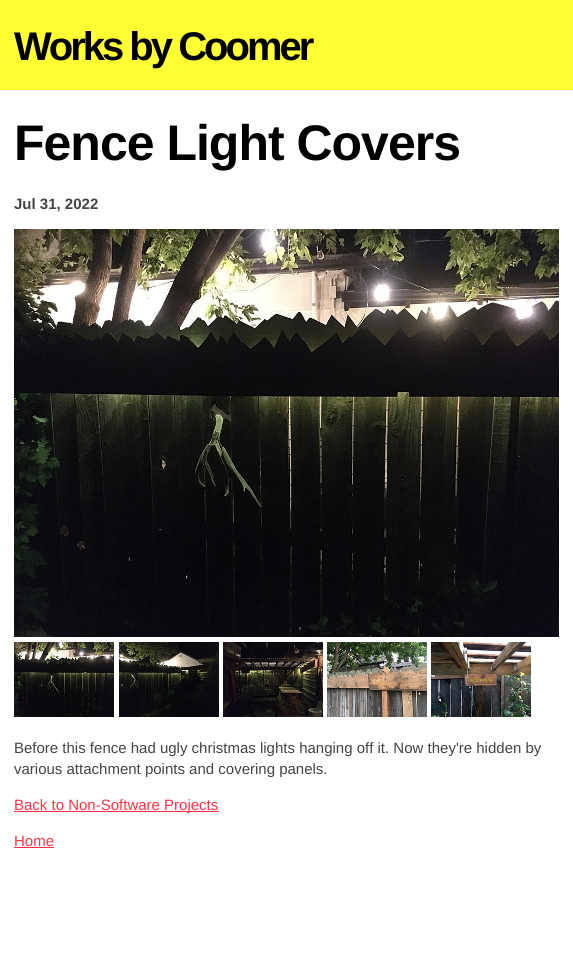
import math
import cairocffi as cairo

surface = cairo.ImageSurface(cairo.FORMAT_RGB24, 573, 973)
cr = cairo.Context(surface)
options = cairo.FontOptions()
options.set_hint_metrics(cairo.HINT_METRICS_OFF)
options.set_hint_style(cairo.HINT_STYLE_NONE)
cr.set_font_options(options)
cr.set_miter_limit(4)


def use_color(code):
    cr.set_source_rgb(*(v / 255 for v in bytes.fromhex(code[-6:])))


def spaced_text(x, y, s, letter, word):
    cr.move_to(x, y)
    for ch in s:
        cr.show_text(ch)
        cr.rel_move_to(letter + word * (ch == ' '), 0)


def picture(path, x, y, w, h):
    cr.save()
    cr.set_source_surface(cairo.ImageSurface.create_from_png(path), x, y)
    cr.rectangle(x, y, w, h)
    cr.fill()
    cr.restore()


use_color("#ffffff")
cr.paint()
use_color("#ffff33")
cr.rectangle(0, 0, 573, 90)
cr.fill()
cr.select_font_face("Liberation Sans", cairo.FONT_SLANT_NORMAL, cairo.FONT_WEIGHT_BOLD)
cr.set_font_size(40)
use_color("#000000")
spaced_text(14, 60, "Works by Coomer", -3, 0)
cr.set_font_size(50)
spaced_text(14, 160, "Fence Light Covers", -1, 0)
cr.set_font_size(15)
use_color("#444444")
cr.move_to(14, 209)
cr.show_text("Jul 31, 2022")
picture("img1.png", 14, 229, 545, 408)
picture("img2.png", 14, 642, 100, 75)
picture("img3.png", 119, 642, 100, 75)
picture("img4.png", 223, 642, 100, 75)
picture("img5.png", 327, 642, 100, 75)
picture("img6.png", 431, 642, 100, 75)
cr.select_font_face("Liberation Sans")
cr.move_to(14, 753)
cr.show_text("Before this fence had ugly christmas lights hanging off it. Now they're hidden by")
cr.move_to(14, 774)
cr.show_text("various attachment points and covering panels.")
use_color("#ff3344")
cr.rectangle(14, 811, 205, 1)
cr.fill()
cr.move_to(14, 810)
cr.show_text("Back to Non-Software Projects")
cr.move_to(14, 846)
cr.show_text("Home")
cr.rectangle(14, 847, 40, 1)
cr.fill()
surface.write_to_png("result.png")
